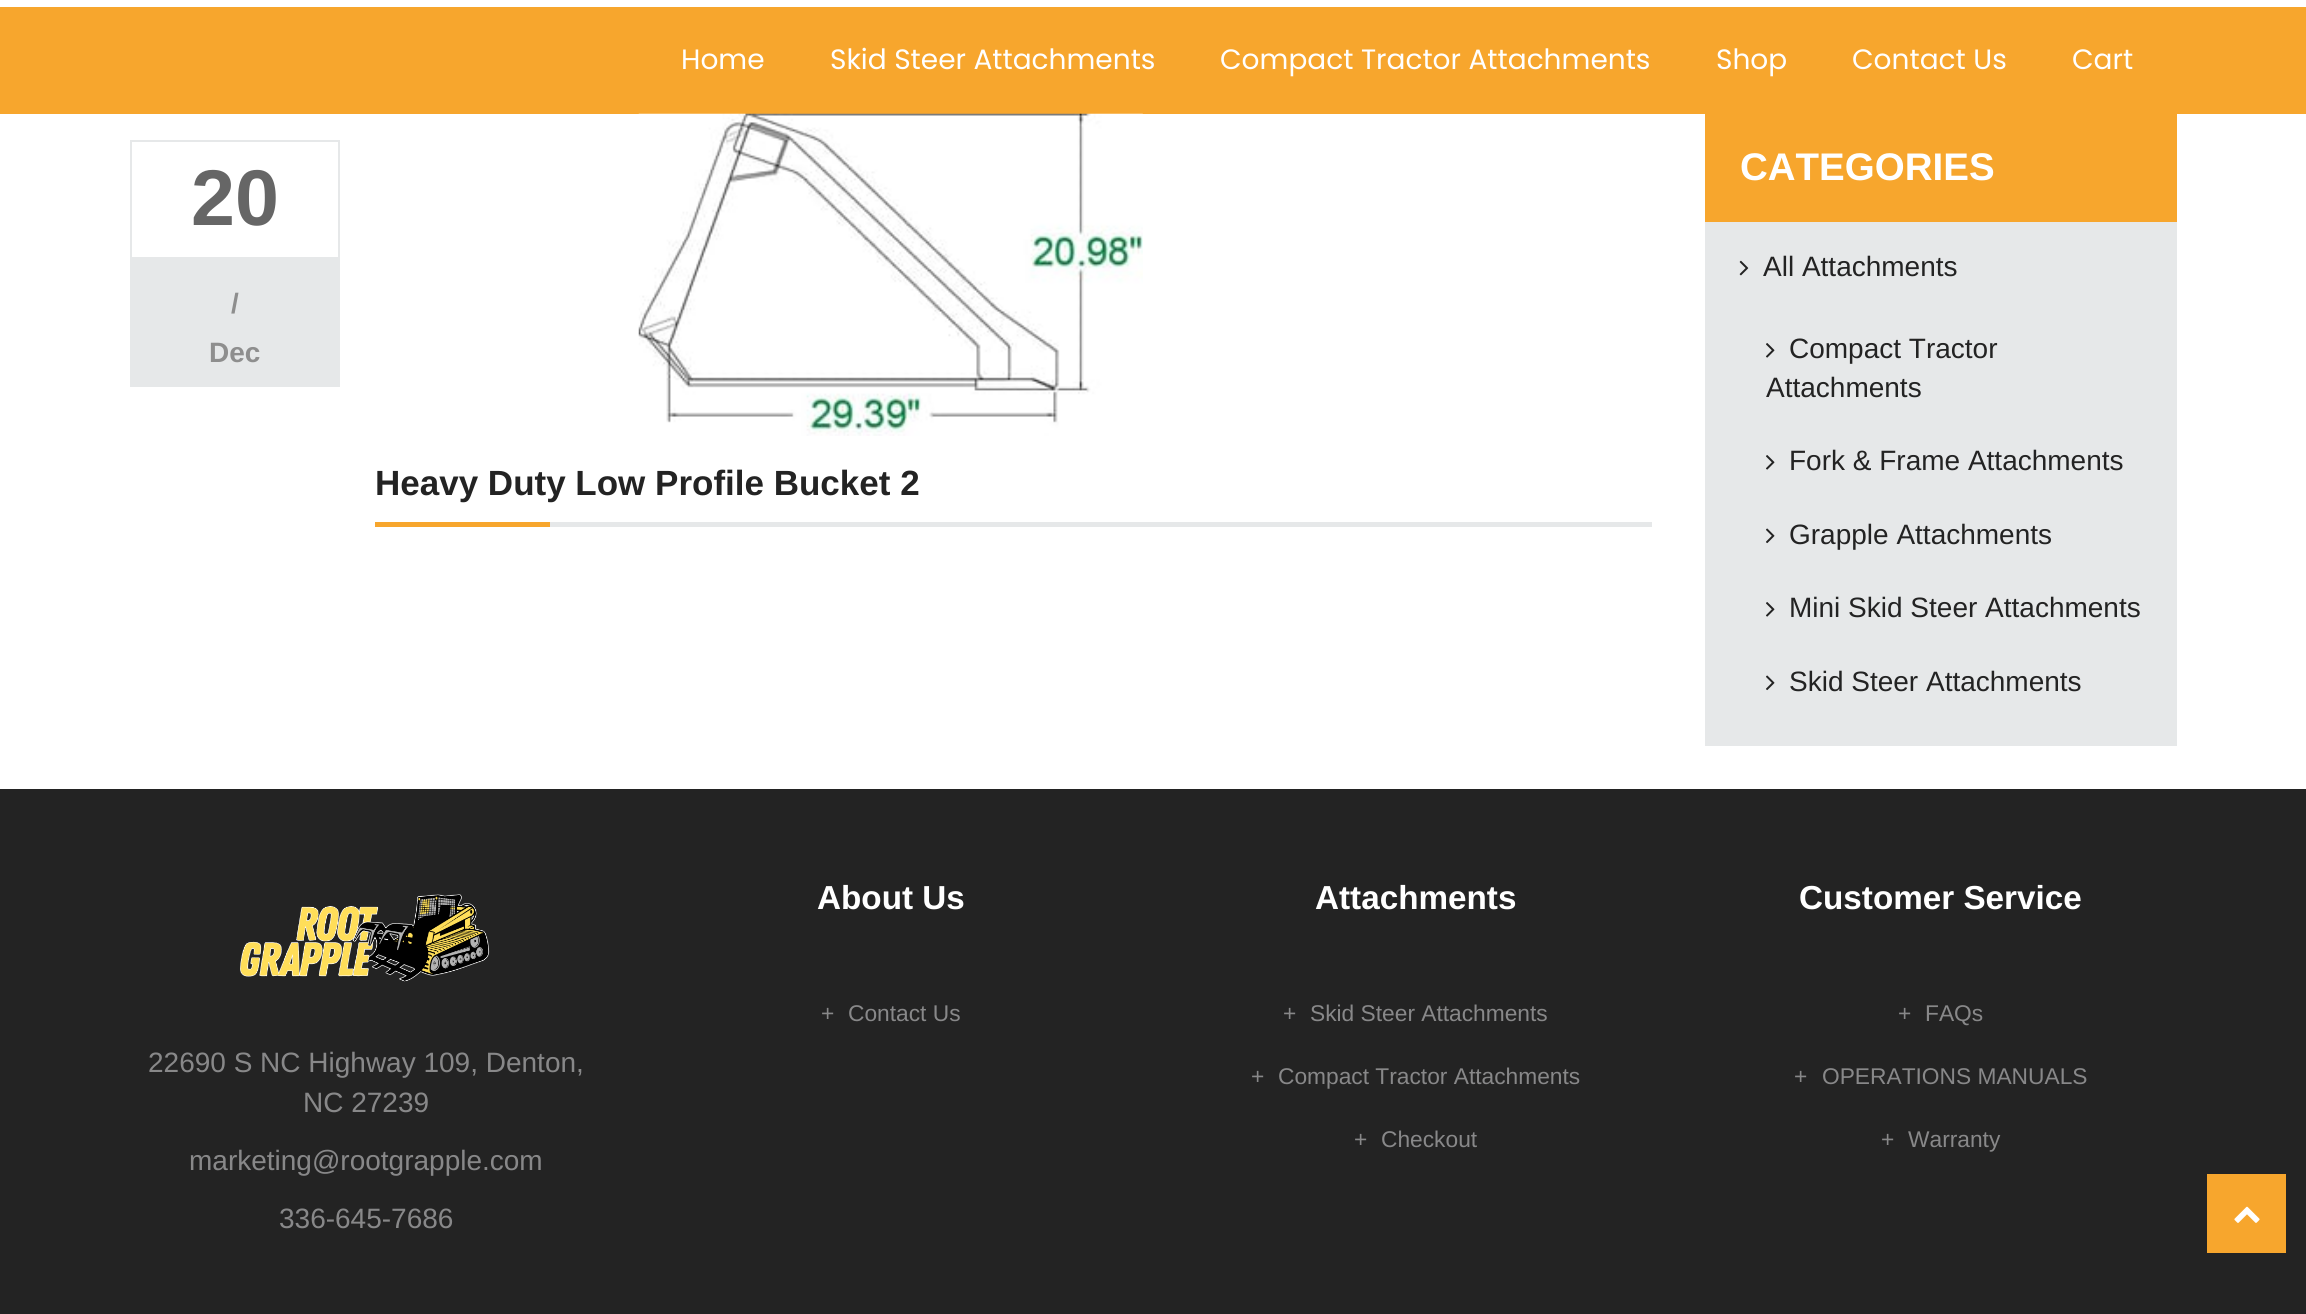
import math
import cairocffi as cairo

surface = cairo.ImageSurface(cairo.FORMAT_RGB24, 2306, 1314)
cr = cairo.Context(surface)
options = cairo.FontOptions()
options.set_hint_metrics(cairo.HINT_METRICS_OFF)
options.set_hint_style(cairo.HINT_STYLE_NONE)
cr.set_font_options(options)
cr.set_miter_limit(4)


def use_color(code):
    cr.set_source_rgb(*(v / 255 for v in bytes.fromhex(code[-6:])))


def picture(path, x, y, w, h):
    cr.save()
    cr.set_source_surface(cairo.ImageSurface.create_from_png(path), x, y)
    cr.rectangle(x, y, w, h)
    cr.fill()
    cr.restore()


use_color("#ffffff")
cr.paint()
use_color("#f7a62d")
cr.rectangle(0, 7, 2306, 107)
cr.fill()
cr.select_font_face("Poppins")
cr.set_font_size(28)
use_color("#ffffff")
cr.move_to(681, 69)
cr.show_text("Home")
cr.move_to(830, 69)
cr.show_text("Skid Steer Attachments")
cr.move_to(1220, 69)
cr.show_text("Compact Tractor Attachments")
cr.move_to(1716, 69)
cr.show_text("Shop")
cr.move_to(1852, 69)
cr.show_text("Contact Us")
cr.move_to(2072, 69)
cr.show_text("Cart")
picture("img1.png", 638, 113, 505, 323)
cr.rectangle(131, 141, 208, 245)
use_color("#e6e8e9")
cr.stroke()
cr.rectangle(131, 257, 207, 2)
cr.fill()
cr.select_font_face("Liberation Sans", cairo.FONT_SLANT_NORMAL, cairo.FONT_WEIGHT_BOLD)
cr.set_font_size(79)
use_color("#666666")
cr.move_to(191, 225)
cr.show_text("20")
use_color("#e6e8e9")
cr.rectangle(132, 259, 206, 126)
cr.fill()
cr.set_font_size(28)
use_color("#8e8e8e")
cr.move_to(231, 313)
cr.show_text("/")
cr.move_to(209, 362)
cr.show_text("Dec")
use_color("#e6e8e9")
cr.rectangle(550, 522, 1102, 5)
cr.fill()
cr.set_font_size(35)
use_color("#232323")
cr.move_to(375, 495)
cr.show_text("Heavy Duty Low Profile Bucket 2")
use_color("#f7a62d")
cr.rectangle(375, 522, 175, 5)
cr.fill()
cr.rectangle(1705, 114, 472, 108)
cr.fill()
cr.set_font_size(38.5)
use_color("#ffffff")
cr.move_to(1740, 180)
cr.show_text("CATEGORIES")
use_color("#e6e8e9")
cr.rectangle(1705, 222, 472, 524)
cr.fill()
picture("img2.png", 1739, 260, 10, 16)
cr.select_font_face("Liberation Sans")
cr.set_font_size(28)
use_color("#232323")
cr.move_to(1763, 276)
cr.show_text("All Attachments")
picture("img3.png", 1766, 343, 9, 15)
cr.move_to(1789, 358)
cr.show_text("Compact Tractor")
cr.move_to(1766, 397)
cr.show_text("Attachments")
picture("img3.png", 1766, 455, 9, 15)
cr.move_to(1789, 470)
cr.show_text("Fork & Frame Attachments")
picture("img4.png", 1766, 528, 9, 16)
cr.move_to(1789, 544)
cr.show_text("Grapple Attachments")
picture("img3.png", 1766, 602, 9, 15)
cr.move_to(1789, 617)
cr.show_text("Mini Skid Steer Attachments")
picture("img4.png", 1766, 675, 9, 16)
cr.move_to(1789, 691)
cr.show_text("Skid Steer Attachments")
cr.rectangle(0, 789, 2306, 525)
cr.fill()
picture("img5.png", 240, 894, 250, 88)
use_color("#888889")
cr.move_to(148, 1072)
cr.show_text("22690 S NC Highway 109, Denton,")
cr.move_to(303, 1112)
cr.show_text("NC 27239")
cr.move_to(189, 1170)
cr.show_text("marketing@rootgrapple.com")
cr.move_to(279, 1228)
cr.show_text("336-645-7686")
cr.select_font_face("Liberation Sans", cairo.FONT_SLANT_NORMAL, cairo.FONT_WEIGHT_BOLD)
cr.set_font_size(33.25)
use_color("#ffffff")
cr.move_to(817, 909)
cr.show_text("About Us")
cr.select_font_face("Liberation Sans")
cr.set_font_size(22.75)
use_color("#888889")
cr.move_to(821, 1021)
cr.show_text("+")
cr.move_to(848, 1021)
cr.show_text("Contact Us")
cr.select_font_face("Liberation Sans", cairo.FONT_SLANT_NORMAL, cairo.FONT_WEIGHT_BOLD)
cr.set_font_size(33.25)
use_color("#ffffff")
cr.move_to(1315, 909)
cr.show_text("Attachments")
cr.select_font_face("Liberation Sans")
cr.set_font_size(22.75)
use_color("#888889")
cr.move_to(1283, 1021)
cr.show_text("+")
cr.move_to(1310, 1021)
cr.show_text("Skid Steer Attachments")
cr.move_to(1251, 1084)
cr.show_text("+")
cr.move_to(1278, 1084)
cr.show_text("Compact Tractor Attachments")
cr.move_to(1354, 1147)
cr.show_text("+")
cr.move_to(1381, 1147)
cr.show_text("Checkout")
cr.select_font_face("Liberation Sans", cairo.FONT_SLANT_NORMAL, cairo.FONT_WEIGHT_BOLD)
cr.set_font_size(33.25)
use_color("#ffffff")
cr.move_to(1799, 909)
cr.show_text("Customer Service")
cr.select_font_face("Liberation Sans")
cr.set_font_size(22.75)
use_color("#888889")
cr.move_to(1898, 1021)
cr.show_text("+")
cr.move_to(1925, 1021)
cr.show_text("FAQs")
cr.move_to(1794, 1084)
cr.show_text("+")
cr.move_to(1822, 1084)
cr.show_text("OPERATIONS MANUALS")
cr.move_to(1881, 1147)
cr.show_text("+")
cr.move_to(1908, 1147)
cr.show_text("Warranty")
use_color("#f7a62d")
cr.rectangle(2207, 1174, 79, 79)
cr.fill()
picture("img6.png", 2234, 1206, 26, 17)
surface.write_to_png("result.png")
